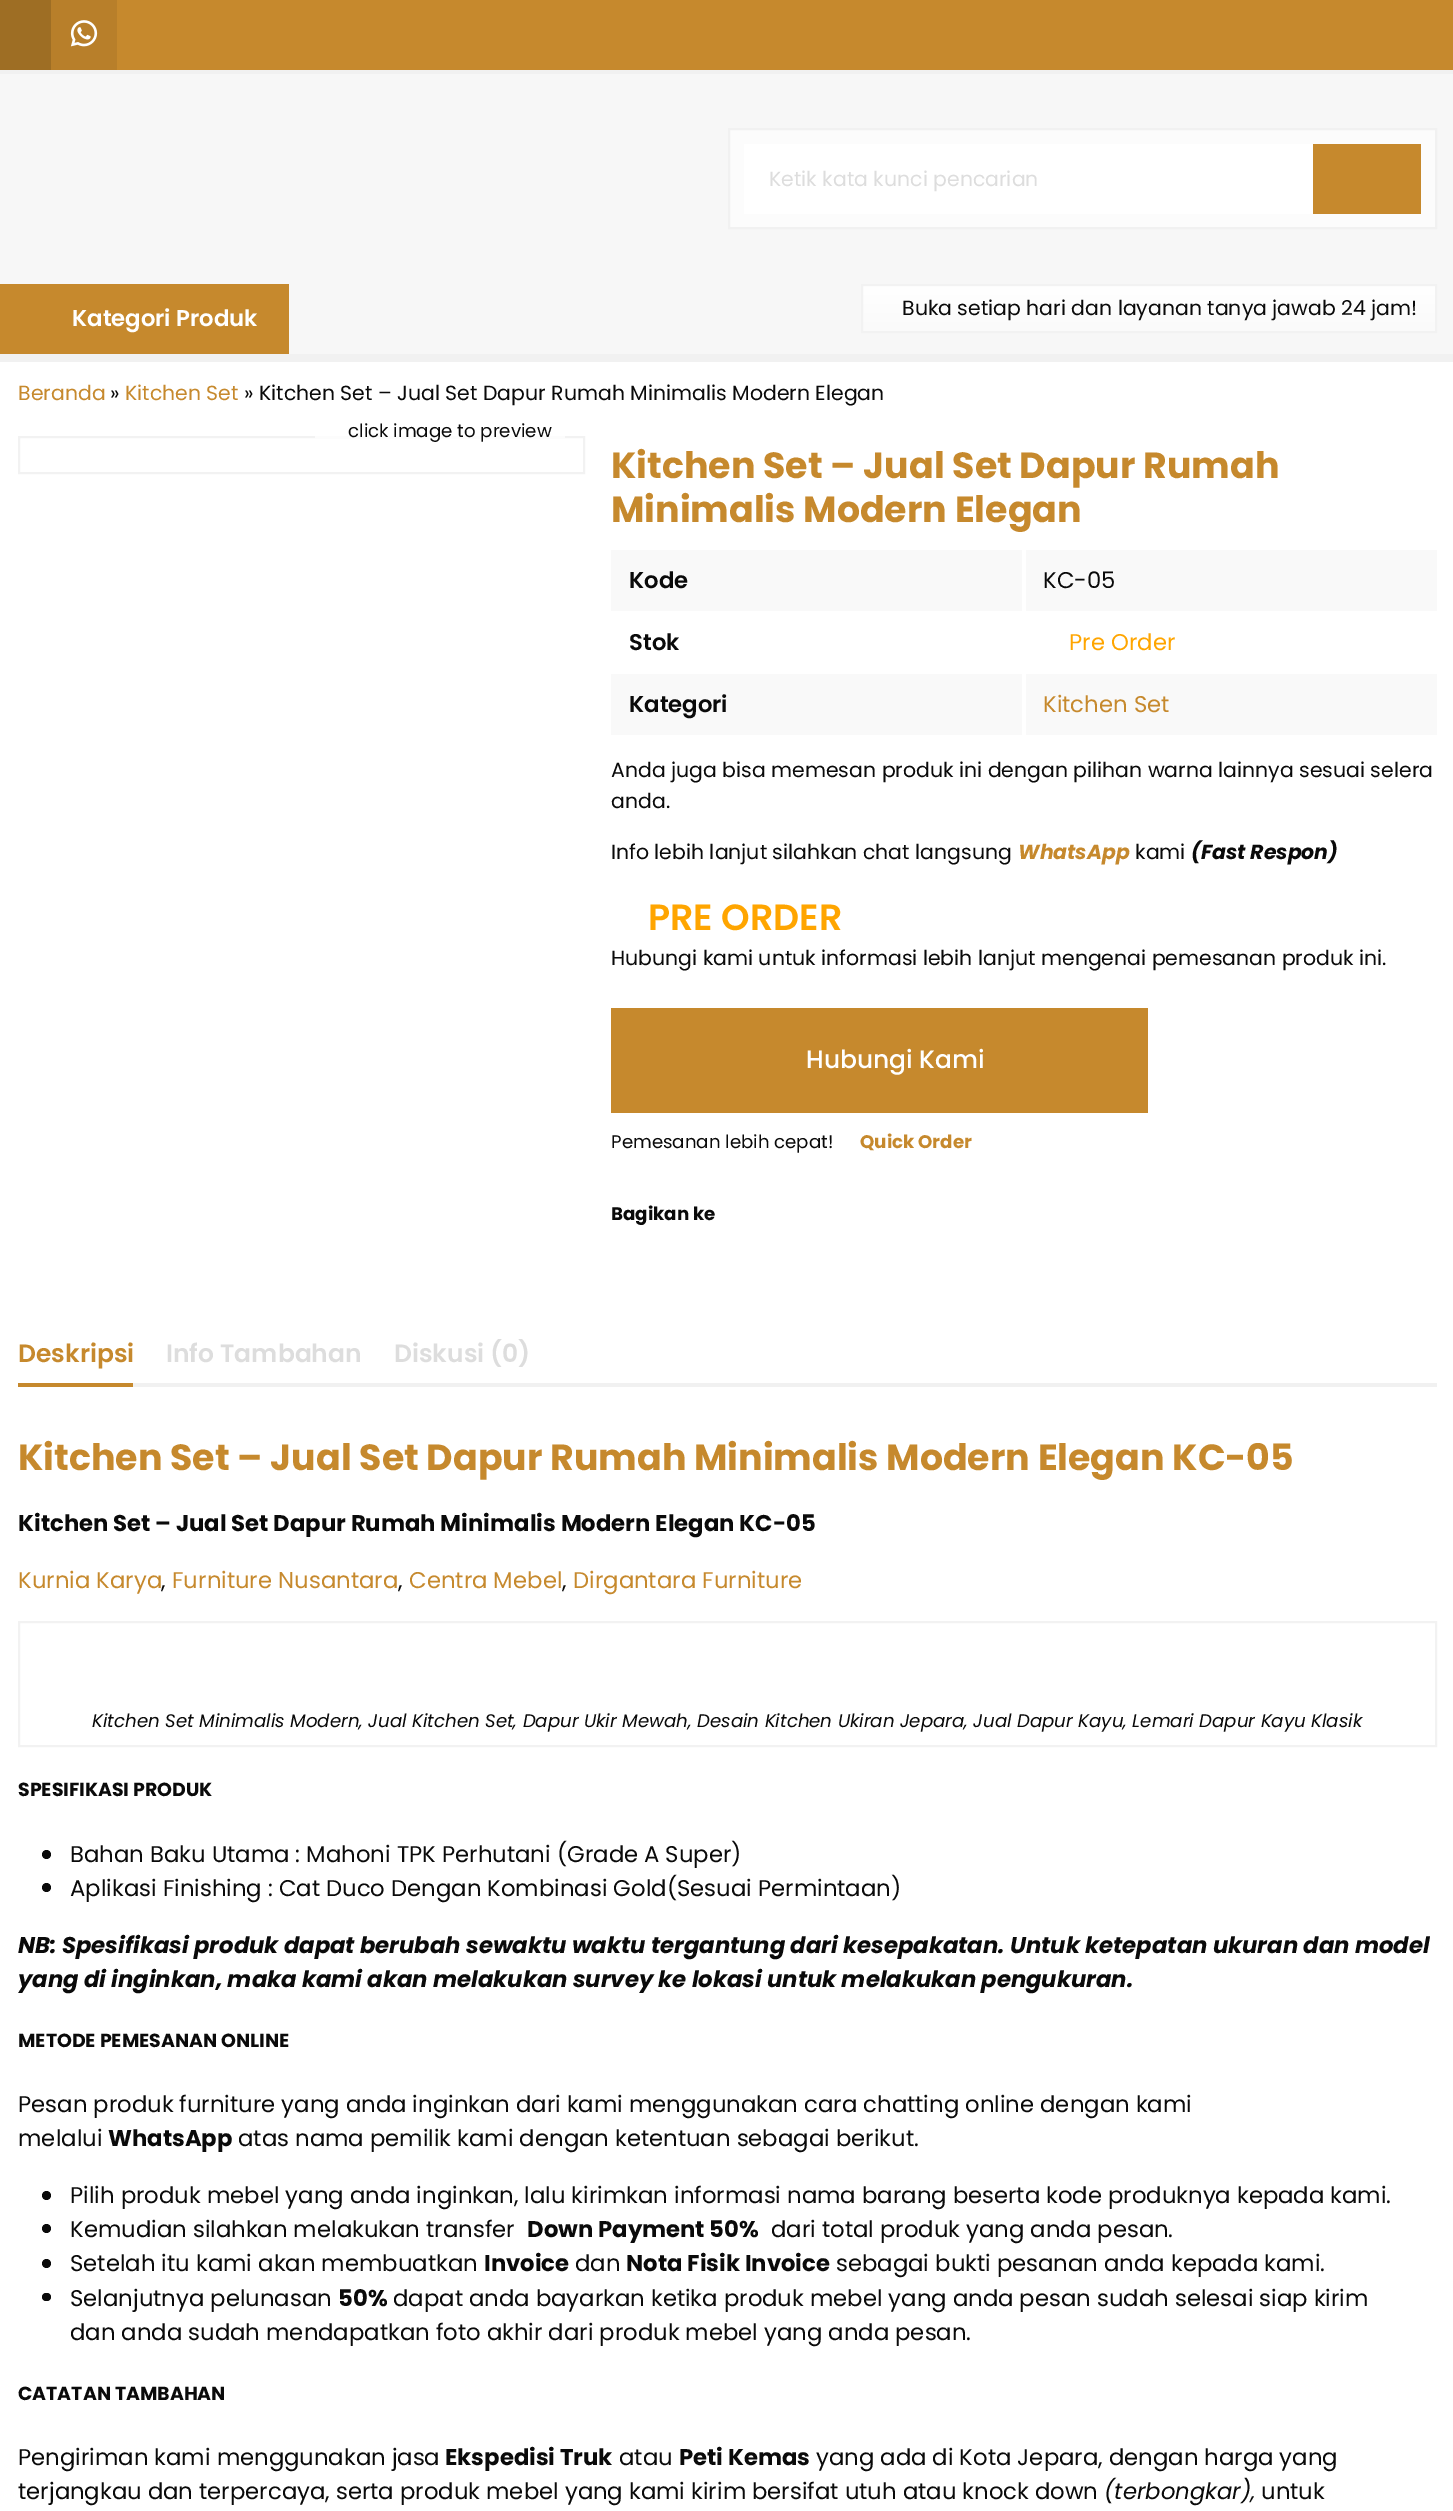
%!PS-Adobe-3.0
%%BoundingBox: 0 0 1453 2511
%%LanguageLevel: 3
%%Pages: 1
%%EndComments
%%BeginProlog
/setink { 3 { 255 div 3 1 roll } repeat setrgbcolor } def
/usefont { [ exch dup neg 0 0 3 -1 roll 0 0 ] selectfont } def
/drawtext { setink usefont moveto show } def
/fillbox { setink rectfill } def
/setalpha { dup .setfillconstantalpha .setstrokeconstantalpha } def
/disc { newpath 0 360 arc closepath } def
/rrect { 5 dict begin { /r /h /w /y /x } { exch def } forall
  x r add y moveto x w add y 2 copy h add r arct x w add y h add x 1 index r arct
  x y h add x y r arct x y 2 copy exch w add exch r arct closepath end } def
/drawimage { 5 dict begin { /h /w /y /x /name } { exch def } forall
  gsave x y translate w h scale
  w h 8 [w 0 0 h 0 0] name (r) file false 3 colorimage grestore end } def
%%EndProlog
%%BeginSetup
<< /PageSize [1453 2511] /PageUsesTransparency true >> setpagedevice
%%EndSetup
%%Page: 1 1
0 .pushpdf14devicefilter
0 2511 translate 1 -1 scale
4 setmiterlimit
0 0 1453 2511 241 241 241 fillbox
117 0 1336 70 198 137 45 fillbox
0 0 51 70 158 110 36 fillbox
51 0 66 70 184 127 42 fillbox
(assets/img1.rgb) 70 20 28 27 drawimage
0 74 1453 280 247 247 247 fillbox
252 252 252 setink
729 129 moveto 1436 129 lineto 1436 228 lineto 729 228 lineto closepath gsave fill grestore
241 241 241 setink
2 setlinewidth
stroke
744 144 569 70 255 255 255 fillbox
(Ketik kata kunci pencarian) 769 186 /Poppins-Regular 20.45 221 221 221 drawtext
1313 144 108 70 198 137 45 fillbox
0 284 289 70 198 137 45 fillbox
(Kategori Produk) 72 326 /Poppins-SemiBold 22.75 255 255 255 drawtext
gsave 863 286 moveto 1435 286 lineto 1435 331 lineto 863 331 lineto closepath clip newpath
<< /ShadingType 2 /ColorSpace /DeviceRGB /Coords [1149 331 1149 285] /Extend [true true] /Function << /FunctionType 2 /Domain [0 1] /C0 [0.98 0.98 0.98] /C1 [1 1 1] /N 1 >> >> shfill grestore
242 242 242 setink
862 285 574 47 rectstroke
(Buka setiap hari dan layanan tanya jawab 24 jam!) 902 315 /Poppins-Regular 20.45 10 10 10 drawtext
0 362 1453 2149 255 255 255 fillbox
(Beranda) 18 400 /Poppins-Regular 20.45 198 137 45 drawtext
(») 110 400 /Poppins-Regular 20.45 10 10 10 drawtext
(Kitchen Set) 125 400 /Poppins-Regular 20.45 198 137 45 drawtext
(» Kitchen Set – Jual Set Dapur Rumah Minimalis Modern Elegan) 244 400 /Poppins-Regular 20.45 10 10 10 drawtext
242 242 242 setink
19 437 565 36 rectstroke
0.8 setalpha
315 436 250 2 255 255 255 fillbox
1 setalpha
(click image to preview) 348 437 /Poppins-Regular 18.2 10 10 10 drawtext
(Kitchen Set – Jual Set Dapur Rumah) 611 478 /Poppins-Bold 36.4 198 137 45 drawtext
(Minimalis Modern Elegan) 611 522 /Poppins-Bold 36.4 198 137 45 drawtext
611 550 826 61 249 249 249 fillbox
(Kode) 629 588 /Poppins-SemiBold 22.75 10 10 10 drawtext
(KC-05) 1043 588 /Poppins-Regular 22.75 10 10 10 drawtext
1022 548 4 65 255 255 255 fillbox
(Stok) 629 650 /Poppins-SemiBold 22.75 10 10 10 drawtext
(Pre Order) 1069 650 /Poppins-Regular 22.75 255 165 0 drawtext
611 674 826 61 249 249 249 fillbox
1022 672 4 65 255 255 255 fillbox
(Kategori) 629 712 /Poppins-SemiBold 22.75 10 10 10 drawtext
(Kitchen Set) 1043 712 /Poppins-Regular 22.75 198 137 45 drawtext
(Anda juga bisa memesan produk ini dengan pilihan warna lainnya sesuai selera) 611 777 /Poppins-Regular 20.45 10 10 10 drawtext
(anda.) 611 808 /Poppins-Regular 20.45 10 10 10 drawtext
(Info lebih lanjut silahkan chat langsung) 611 859 /Poppins-Regular 20.45 10 10 10 drawtext
(WhatsApp) 1018 859 /Poppins-BoldItalic 20.45 198 137 45 drawtext
(kami) 1135 859 /Poppins-Regular 20.45 10 10 10 drawtext
(\(Fast Respon\)) 1191 859 /Poppins-BoldItalic 20.45 10 10 10 drawtext
(PRE ORDER) 648 930 /Poppins-SemiBold 36.4 255 165 0 drawtext
(Hubungi kami untuk informasi lebih lanjut mengenai pemesanan produk ini.) 611 965 /Poppins-Regular 20.45 10 10 10 drawtext
611 1008 537 105 198 137 45 fillbox
(Hubungi Kami) 806 1068 /Poppins-Medium 25 255 255 255 drawtext
(Pemesanan lebih cepat!) 611 1148 /Poppins-Regular 18.2 10 10 10 drawtext
(Quick Order) 860 1148 /Poppins-Bold 18.2 198 137 45 drawtext
(Bagikan ke) 611 1220 /Poppins-Bold 18.2 10 10 10 drawtext
133 1383 1304 4 241 241 241 fillbox
18 1383 115 4 198 137 45 fillbox
(Deskripsi) 18 1362 /Poppins-SemiBold 25 198 137 45 drawtext
(Info Tambahan) 166 1362 /Poppins-SemiBold 25 221 221 221 drawtext
(Diskusi \(0\)) 394 1362 /Poppins-SemiBold 25 221 221 221 drawtext
(Kitchen Set – Jual Set Dapur Rumah Minimalis Modern Elegan KC-05) 18 1470 /Poppins-Bold 36.4 198 137 45 drawtext
(Kitchen Set – Jual Set Dapur Rumah Minimalis Modern Elegan KC-05) 18 1531 /Poppins-Bold 22.75 10 10 10 drawtext
(Kurnia Karya) 18 1588 /Poppins-Regular 22.75 198 137 45 drawtext
(,) 161 1588 /Poppins-Regular 22.75 10 10 10 drawtext
(Furniture Nusantara) 172 1588 /Poppins-Regular 22.75 198 137 45 drawtext
(,) 398 1588 /Poppins-Regular 22.75 10 10 10 drawtext
(Centra Mebel) 409 1588 /Poppins-Regular 22.75 198 137 45 drawtext
(,) 562 1588 /Poppins-Regular 22.75 10 10 10 drawtext
(Dirgantara Furniture) 573 1588 /Poppins-Regular 22.75 198 137 45 drawtext
242 242 242 setink
19 1622 1417 124 rectstroke
(Kitchen Set Minimalis Modern, Jual Kitchen Set, Dapur Ukir Mewah, Desain Kitchen Ukiran Jepara, Jual Dapur Kayu, Lemari Dapur Kayu Klasik) 92 1727 /Poppins-Italic 18.2 10 10 10 drawtext
(SPESIFIKASI PRODUK) 18 1796 /Poppins-Bold 18.9 10 10 10 drawtext
46.5 1854.5 4.5 disc fill
(Bahan Baku Utama : Mahoni TPK Perhutani \(Grade A Super\)) 70 1862 /Poppins-Regular 22.75 10 10 10 drawtext
46.5 1887.5 4.5 disc fill
(Aplikasi Finishing : Cat Duco Dengan Kombinasi Gold\(Sesuai Permintaan\)) 70 1896 /Poppins-Regular 22.75 10 10 10 drawtext
(NB: Spesifikasi produk dapat berubah sewaktu waktu tergantung dari kesepakatan. Untuk ketepatan ukuran dan model) 18 1953 /Poppins-BoldItalic 22.75 10 10 10 drawtext
(yang di inginkan, maka kami akan melakukan survey ke lokasi untuk melakukan pengukuran.) 18 1987 /Poppins-BoldItalic 22.75 10 10 10 drawtext
(METODE PEMESANAN ONLINE) 18 2047 /Poppins-Bold 18.9 10 10 10 drawtext
(Pesan produk furniture yang anda inginkan dari kami menggunakan cara chatting online dengan kami) 18 2112 /Poppins-Regular 22.75 10 10 10 drawtext
(melalui) 18 2146 /Poppins-Regular 22.75 10 10 10 drawtext
(WhatsApp) 108 2146 /Poppins-Bold 22.75 10 10 10 drawtext
(atas nama pemilik kami dengan ketentuan sebagai berikut.) 238 2146 /Poppins-Regular 22.75 10 10 10 drawtext
46.5 2195.5 4.5 disc fill
(Pilih produk mebel yang anda inginkan, lalu kirimkan informasi nama barang beserta kode produknya kepada kami.) 70 2203 /Poppins-Regular 22.75 10 10 10 drawtext
46.5 2228.5 4.5 disc fill
(Kemudian silahkan melakukan transfer) 70 2237 /Poppins-Regular 22.75 10 10 10 drawtext
(Down Payment 50%) 527 2237 /Poppins-Bold 22.75 10 10 10 drawtext
(dari total produk yang anda pesan.) 771 2237 /Poppins-Regular 22.75 10 10 10 drawtext
46.5 2263.5 4.5 disc fill
(Setelah itu kami akan membuatkan) 70 2271 /Poppins-Regular 22.75 10 10 10 drawtext
(Invoice) 484 2271 /Poppins-Bold 22.75 10 10 10 drawtext
(dan) 575 2271 /Poppins-Regular 22.75 10 10 10 drawtext
(Nota Fisik Invoice) 626 2271 /Poppins-Bold 22.75 10 10 10 drawtext
(sebagai bukti pesanan anda kepada kami.) 836 2271 /Poppins-Regular 22.75 10 10 10 drawtext
42 2293 9 8 4 rrect fill
(Selanjutnya pelunasan) 70 2306 /Poppins-Regular 22.75 10 10 10 drawtext
(50%) 338 2306 /Poppins-Bold 22.75 10 10 10 drawtext
(dapat anda bayarkan ketika produk mebel yang anda pesan sudah selesai siap kirim) 393 2306 /Poppins-Regular 22.75 10 10 10 drawtext
(dan anda sudah mendapatkan foto akhir dari produk mebel yang anda pesan.) 70 2340 /Poppins-Regular 22.75 10 10 10 drawtext
(CATATAN TAMBAHAN) 18 2400 /Poppins-Bold 18.9 10 10 10 drawtext
(Pengiriman kami menggunakan jasa) 18 2465 /Poppins-Regular 22.75 10 10 10 drawtext
(Ekspedisi Truk) 445 2465 /Poppins-Bold 22.75 10 10 10 drawtext
(atau) 619 2465 /Poppins-Regular 22.75 10 10 10 drawtext
(Peti Kemas) 679 2465 /Poppins-Bold 22.75 10 10 10 drawtext
(yang ada di Kota Jepara, dengan harga yang) 816 2465 /Poppins-Regular 22.75 10 10 10 drawtext
(terjangkau dan terpercaya, serta produk mebel yang kami kirim bersifat utuh atau knock down) 18 2499 /Poppins-Regular 22.75 10 10 10 drawtext
(\(terbongkar\),) 1104 2499 /Poppins-Italic 22.75 10 10 10 drawtext
(untuk) 1261 2499 /Poppins-Regular 22.75 10 10 10 drawtext
.poppdf14devicefilter showpage
%%EOF
